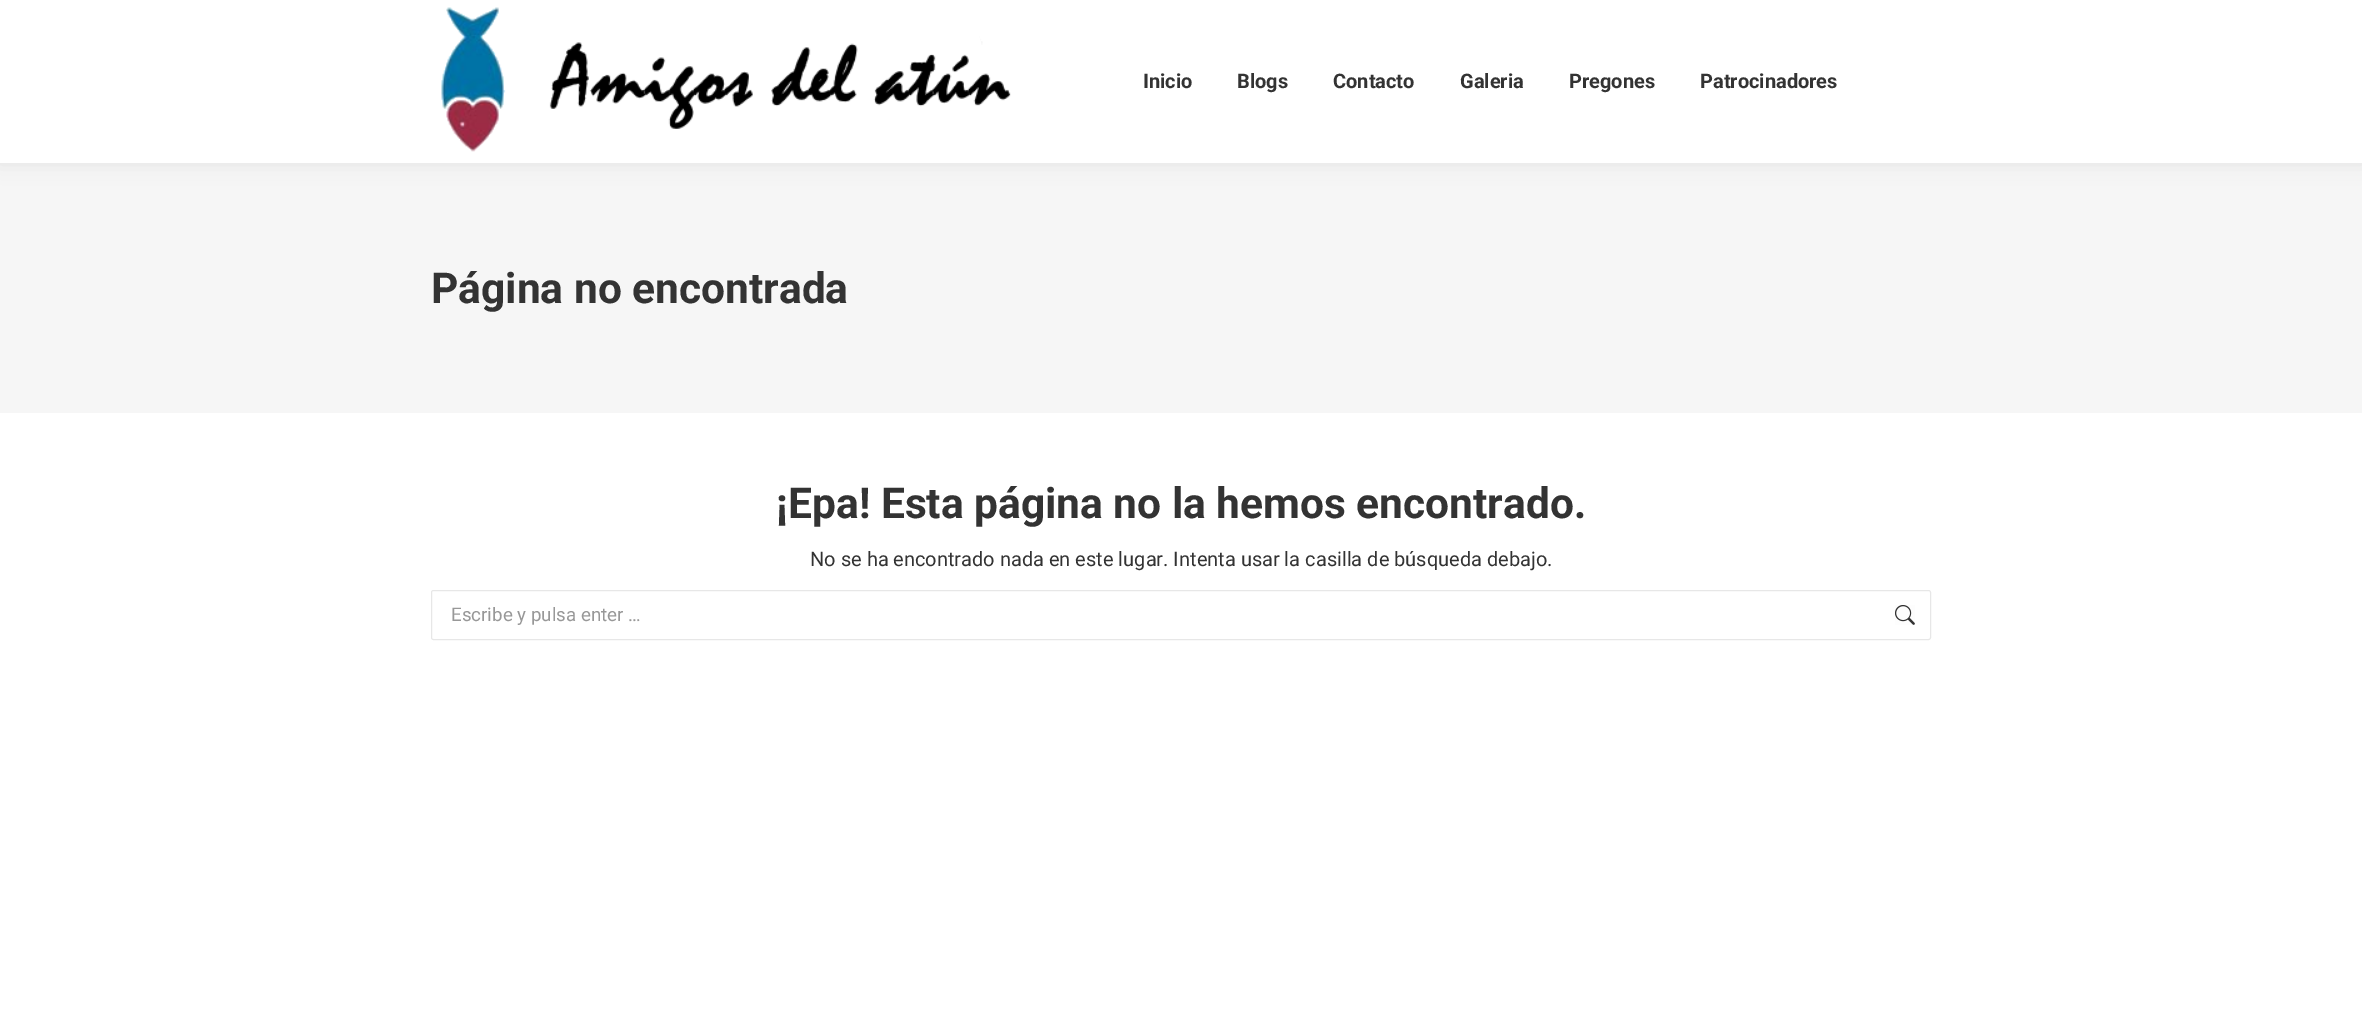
%!PS-Adobe-3.0
%%BoundingBox: 0 0 2362 1020
%%LanguageLevel: 3
%%Pages: 1
%%EndComments
%%BeginProlog
/setink { 3 { 255 div 3 1 roll } repeat setrgbcolor } def
/usefont { [ exch dup neg 0 0 3 -1 roll 0 0 ] selectfont } def
/drawtext { setink usefont moveto show } def
/fillbox { setink rectfill } def
/setalpha { dup .setfillconstantalpha .setstrokeconstantalpha } def
/rrect { 5 dict begin { /r /h /w /y /x } { exch def } forall
  x r add y moveto x w add y 2 copy h add r arct x w add y h add x 1 index r arct
  x y h add x y r arct x y 2 copy exch w add exch r arct closepath end } def
/softshadow { 12 dict begin { /a /b /q /h /w /y /x } { exch def } forall gsave /was 0 def
  9 -2 -9 { dup b mul 4 div /e exch def 1 sub .425 mul 2.718 exch exp 1 add a .99 .min exch div /now exch def
    1 1 now sub 1 was sub div sub setalpha /was now def
    w h .min e 2 mul add 0 gt { x e sub y e sub w e 2 mul add h e 2 mul add
      q e add b .6 mul add w h .min 2 div e add .min 0 .max rrect fill } if } for grestore end } def
/drawimage { 5 dict begin { /h /w /y /x /name } { exch def } forall
  gsave x y translate w h scale
  w h 8 [w 0 0 h 0 0] name (r) file false 3 colorimage grestore end } def
%%EndProlog
%%BeginSetup
<< /PageSize [2362 1020] /PageUsesTransparency true >> setpagedevice
%%EndSetup
%%Page: 1 1
0 .pushpdf14devicefilter
0 1020 translate 1 -1 scale
4 setmiterlimit
0 0 2362 1020 255 255 255 fillbox
0 163 2362 250 246 246 246 fillbox
0 0 0 setink
-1 -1 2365 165 0 9.5 0.07 softshadow
0 0 2362 163 255 255 255 fillbox
(assets/img1.rgb) 441 7 570 145 drawimage
(Inicio) 1143 88 /Roboto-Bold 20 51 51 51 drawtext
(Blogs) 1237 88 /Roboto-Bold 20 51 51 51 drawtext
(Contacto) 1333 88 /Roboto-Bold 20 51 51 51 drawtext
(Galeria) 1460 88 /Roboto-Bold 20 51 51 51 drawtext
(Pregones) 1569 88 /Roboto-Bold 20 51 51 51 drawtext
(Patrocinadores) 1700 88 /Roboto-Bold 20 51 51 51 drawtext
(Página no encontrada) 431 303 /Roboto-Bold 42.5 51 51 51 drawtext
(¡Epa! Esta página no la hemos encontrado.) 776 518 /Roboto-Bold 42.5 51 51 51 drawtext
(No se ha encontrado nada en este lugar. Intenta usar la casilla de búsqueda debajo.) 810 566 /Roboto-Regular 20 51 51 51 drawtext
231 231 231 setink
431.5 590.5 1499 49 2 rrect stroke
(Escribe y pulsa enter …) 451 621 /Roboto-Regular 18.75 152 152 152 drawtext
(assets/img2.rgb) 1895 605 20 20 drawimage
.poppdf14devicefilter showpage
%%EOF
